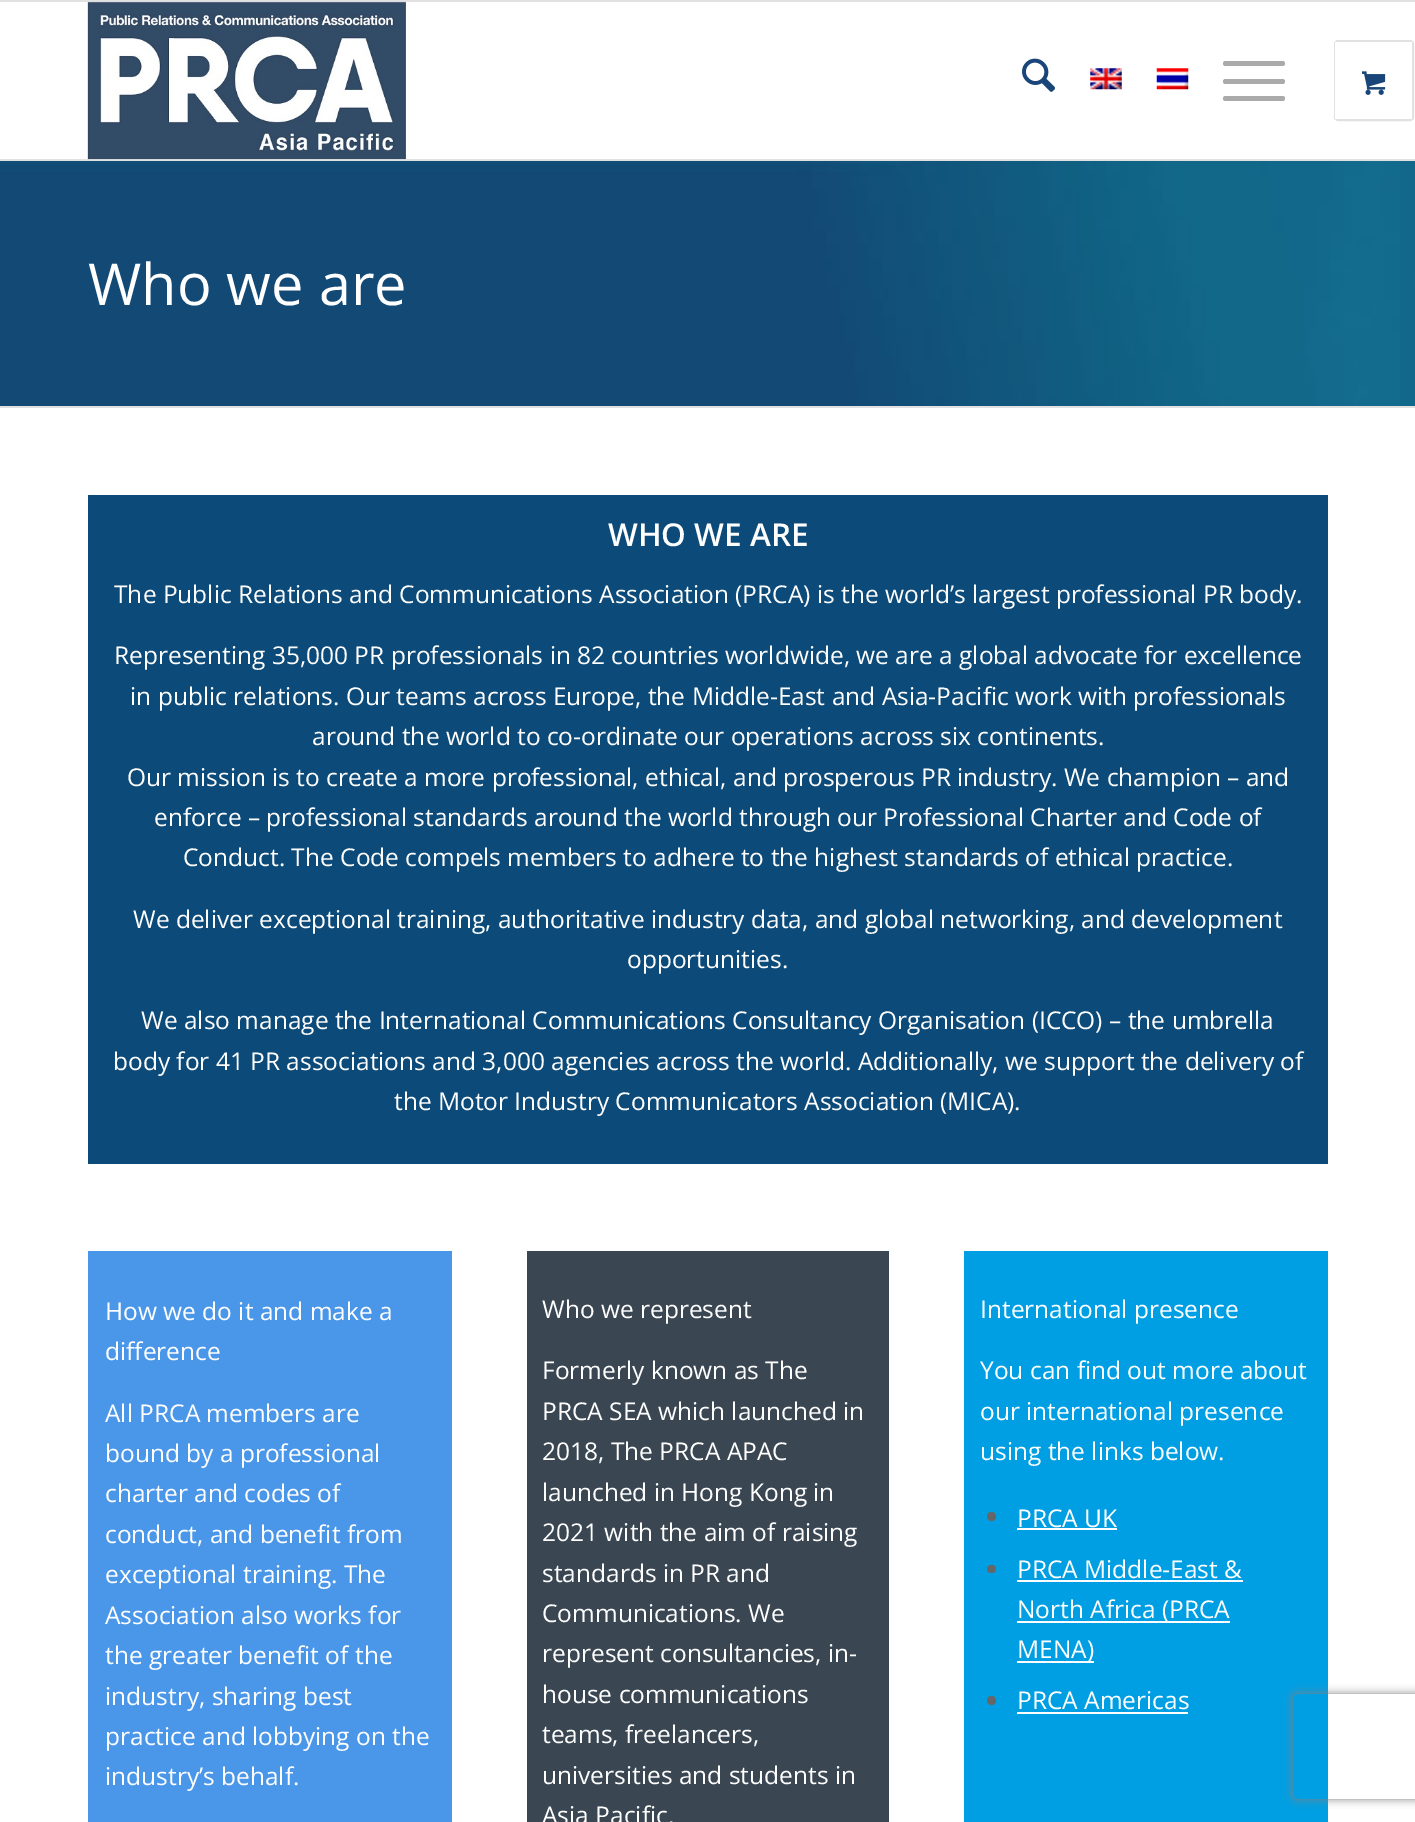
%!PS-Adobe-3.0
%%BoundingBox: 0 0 1415 1822
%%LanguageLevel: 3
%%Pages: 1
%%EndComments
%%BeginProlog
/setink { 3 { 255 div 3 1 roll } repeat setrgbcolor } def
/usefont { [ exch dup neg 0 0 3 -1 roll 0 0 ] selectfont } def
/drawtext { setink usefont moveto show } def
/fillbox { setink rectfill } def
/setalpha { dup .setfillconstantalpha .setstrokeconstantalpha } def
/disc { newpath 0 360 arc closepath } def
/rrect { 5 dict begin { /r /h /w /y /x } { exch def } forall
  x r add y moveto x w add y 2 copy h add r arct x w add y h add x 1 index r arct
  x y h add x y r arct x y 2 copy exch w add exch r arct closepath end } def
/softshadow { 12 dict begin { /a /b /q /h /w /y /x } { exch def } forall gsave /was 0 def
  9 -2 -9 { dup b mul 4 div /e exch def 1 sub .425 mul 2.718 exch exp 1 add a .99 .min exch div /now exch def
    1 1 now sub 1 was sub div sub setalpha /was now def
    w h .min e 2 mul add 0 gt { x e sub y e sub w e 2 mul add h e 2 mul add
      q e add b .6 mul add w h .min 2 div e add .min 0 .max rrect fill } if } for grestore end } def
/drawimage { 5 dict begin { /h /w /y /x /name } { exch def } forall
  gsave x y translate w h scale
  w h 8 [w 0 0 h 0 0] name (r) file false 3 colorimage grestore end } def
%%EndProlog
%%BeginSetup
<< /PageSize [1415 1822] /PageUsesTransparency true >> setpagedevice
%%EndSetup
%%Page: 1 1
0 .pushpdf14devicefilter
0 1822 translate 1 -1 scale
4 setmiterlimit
0 0 1415 1822 255 255 255 fillbox
0 0 1415 2 225 225 225 fillbox
0 159 1415 2 225 225 225 fillbox
(assets/img1.rgb) 87 1 319 159 drawimage
(assets/img2.rgb) 1022 58 33 34 drawimage
(assets/img3.rgb) 1090 68 32 22 drawimage
(assets/img4.rgb) 1156 68 33 22 drawimage
170 170 170 setink
1223 79 62 5 2.5 rrect fill
1223 61 62 5 2.5 rrect fill
1223 96 62 5 2.5 rrect fill
225 225 225 setink
2 setlinewidth
1335 41 78 79 3 rrect stroke
1335 42 77 77 255 255 255 fillbox
(assets/img5.rgb) 1362 71 24 24 drawimage
(assets/img6.rgb) 0 161 1415 245 drawimage
(Who we are) 88 305 /OpenSans-Regular 57.75 255 255 255 drawtext
0 406 1415 2 225 225 225 fillbox
88 495 1240 669 12 75 121 fillbox
(WHO WE ARE) 608 546 /OpenSans-SemiBold 31.5 255 255 255 drawtext
(The Public Relations and Communications Association \(PRCA\) is the world’s largest professional PR body.) 114 603 /OpenSans-Regular 24.5 255 255 255 drawtext
(Representing 35,000 PR professionals in 82 countries worldwide, we are a global advocate for excellence) 114 664 /OpenSans-Regular 24.5 255 255 255 drawtext
(in public relations. Our teams across Europe, the Middle-East and Asia-Pacific work with professionals) 130 705 /OpenSans-Regular 24.5 255 255 255 drawtext
(around the world to co-ordinate our operations across six continents.) 312 745 /OpenSans-Regular 24.5 255 255 255 drawtext
(Our mission is to create a more professional, ethical, and prosperous PR industry. We champion – and) 127 786 /OpenSans-Regular 24.5 255 255 255 drawtext
(enforce – professional standards around the world through our Professional Charter and Code of) 154 826 /OpenSans-Regular 24.5 255 255 255 drawtext
(Conduct. The Code compels members to adhere to the highest standards of ethical practice.) 183 866 /OpenSans-Regular 24.5 255 255 255 drawtext
(We deliver exceptional training, authoritative industry data, and global networking, and development) 133 928 /OpenSans-Regular 24.5 255 255 255 drawtext
(opportunities.) 627 968 /OpenSans-Regular 24.5 255 255 255 drawtext
(We also manage the International Communications Consultancy Organisation \(ICCO\) – the umbrella) 141 1029 /OpenSans-Regular 24.5 255 255 255 drawtext
(body for 41 PR associations and 3,000 agencies across the world. Additionally, we support the delivery of) 113 1070 /OpenSans-Regular 24.5 255 255 255 drawtext
(the Motor Industry Communicators Association \(MICA\).) 394 1110 /OpenSans-Regular 24.5 255 255 255 drawtext
88 1251 364 571 74 150 232 fillbox
(How we do it and make a) 105 1320 /OpenSans-Regular 24.5 255 255 255 drawtext
(difference) 105 1360 /OpenSans-Regular 24.5 255 255 255 drawtext
(All PRCA members are) 105 1422 /OpenSans-Regular 24.5 255 255 255 drawtext
(bound by a professional) 105 1462 /OpenSans-Regular 24.5 255 255 255 drawtext
(charter and codes of) 105 1502 /OpenSans-Regular 24.5 255 255 255 drawtext
(conduct, and benefit from) 105 1543 /OpenSans-Regular 24.5 255 255 255 drawtext
(exceptional training. The) 105 1583 /OpenSans-Regular 24.5 255 255 255 drawtext
(Association also works for) 105 1624 /OpenSans-Regular 24.5 255 255 255 drawtext
(the greater benefit of the) 105 1664 /OpenSans-Regular 24.5 255 255 255 drawtext
(industry, sharing best) 105 1705 /OpenSans-Regular 24.5 255 255 255 drawtext
(practice and lobbying on the) 105 1745 /OpenSans-Regular 24.5 255 255 255 drawtext
(industry’s behalf.) 105 1785 /OpenSans-Regular 24.5 255 255 255 drawtext
527 1251 362 571 58 71 82 fillbox
(Who we represent) 542 1318 /OpenSans-Regular 24.5 255 255 255 drawtext
(Formerly known as The) 542 1379 /OpenSans-Regular 24.5 255 255 255 drawtext
(PRCA SEA which launched in) 542 1420 /OpenSans-Regular 24.5 255 255 255 drawtext
(2018, The PRCA APAC) 542 1460 /OpenSans-Regular 24.5 255 255 255 drawtext
(launched in Hong Kong in) 542 1501 /OpenSans-Regular 24.5 255 255 255 drawtext
(2021 with the aim of raising) 542 1541 /OpenSans-Regular 24.5 255 255 255 drawtext
(standards in PR and) 542 1582 /OpenSans-Regular 24.5 255 255 255 drawtext
(Communications. We) 542 1622 /OpenSans-Regular 24.5 255 255 255 drawtext
(represent consultancies, in-) 542 1662 /OpenSans-Regular 24.5 255 255 255 drawtext
(house communications) 542 1703 /OpenSans-Regular 24.5 255 255 255 drawtext
(teams, freelancers,) 542 1743 /OpenSans-Regular 24.5 255 255 255 drawtext
(universities and students in) 542 1784 /OpenSans-Regular 24.5 255 255 255 drawtext
(Asia Pacific.) 542 1824 /OpenSans-Regular 24.5 255 255 255 drawtext
964 1251 364 571 0 159 227 fillbox
(International presence) 980 1318 /OpenSans-Regular 24.5 255 255 255 drawtext
(You can find out more about) 980 1379 /OpenSans-Regular 24.5 255 255 255 drawtext
(our international presence) 980 1420 /OpenSans-Regular 24.5 255 255 255 drawtext
(using the links below.) 980 1460 /OpenSans-Regular 24.5 255 255 255 drawtext
102 102 102 setink
991.5 1516.5 4.5 disc fill
(PRCA UK) 1017 1527 /OpenSans-Regular 24.5 255 255 255 drawtext
1017 1528 100 2 255 255 255 fillbox
102 102 102 setink
987 1565 9 8 4 rrect fill
(PRCA Middle-East &) 1017 1578 /OpenSans-Regular 24.5 255 255 255 drawtext
1017 1580 226 2 255 255 255 fillbox
1017 1621 213 2 255 255 255 fillbox
(North Africa \(PRCA) 1017 1618 /OpenSans-Regular 24.5 255 255 255 drawtext
1017 1661 77 2 255 255 255 fillbox
(MENA\)) 1017 1658 /OpenSans-Regular 24.5 255 255 255 drawtext
102 102 102 setink
991.5 1700.5 4.5 disc fill
(PRCA Americas) 1017 1709 /OpenSans-Regular 24.5 255 255 255 drawtext
1017 1712 171 2 255 255 255 fillbox
gsave
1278 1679 moveto 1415 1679 lineto 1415 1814 lineto 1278 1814 lineto closepath 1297 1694 moveto 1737 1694 lineto 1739 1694 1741 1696 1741 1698 curveto 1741 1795 lineto 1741 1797 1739 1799 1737 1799 curveto 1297 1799 lineto 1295 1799 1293 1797 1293 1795 curveto 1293 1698 lineto 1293 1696 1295 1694 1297 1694 curveto closepath eoclip newpath
128 128 128 setink
1293 1694 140 105 4 4.5 1 softshadow
grestore
.poppdf14devicefilter showpage
%%EOF
